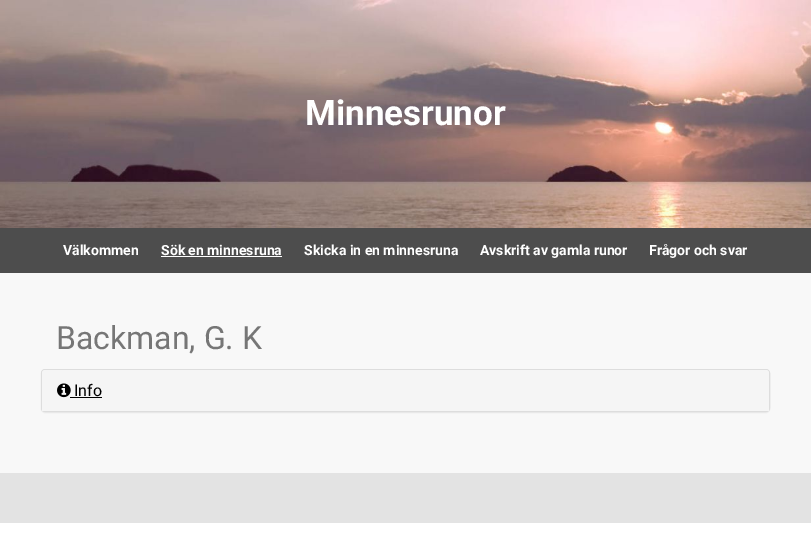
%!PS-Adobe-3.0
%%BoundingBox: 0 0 811 539
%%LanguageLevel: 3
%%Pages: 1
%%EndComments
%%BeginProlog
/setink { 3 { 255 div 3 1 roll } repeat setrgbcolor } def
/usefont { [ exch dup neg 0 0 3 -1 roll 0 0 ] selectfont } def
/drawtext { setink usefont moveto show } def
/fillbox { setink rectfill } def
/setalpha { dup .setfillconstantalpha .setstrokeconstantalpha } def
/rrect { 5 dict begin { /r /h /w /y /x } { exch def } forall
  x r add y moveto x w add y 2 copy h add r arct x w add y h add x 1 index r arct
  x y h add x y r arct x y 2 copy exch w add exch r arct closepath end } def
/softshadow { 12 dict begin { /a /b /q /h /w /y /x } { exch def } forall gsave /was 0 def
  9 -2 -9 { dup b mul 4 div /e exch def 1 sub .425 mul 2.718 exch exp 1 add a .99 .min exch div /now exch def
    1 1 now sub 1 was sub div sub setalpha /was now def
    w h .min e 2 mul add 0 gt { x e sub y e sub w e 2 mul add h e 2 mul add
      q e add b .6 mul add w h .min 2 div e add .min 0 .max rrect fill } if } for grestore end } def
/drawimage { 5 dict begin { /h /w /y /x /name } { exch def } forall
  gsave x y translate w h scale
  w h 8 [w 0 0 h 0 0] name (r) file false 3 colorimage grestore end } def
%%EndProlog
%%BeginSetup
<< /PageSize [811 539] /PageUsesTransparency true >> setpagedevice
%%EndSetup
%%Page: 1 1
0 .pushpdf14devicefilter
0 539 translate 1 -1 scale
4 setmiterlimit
0 0 811 539 255 255 255 fillbox
(assets/img1.rgb) 0 0 811 228 drawimage
(Minnesrunor) 305 125 /Roboto-Bold 35 255 255 255 drawtext
0 228 811 45 77 77 77 fillbox
(Välkommen) 63 255 /Roboto-Bold 14 255 255 255 drawtext
(Sök en minnesruna) 161 255 /Roboto-Bold 14 255 255 255 drawtext
161 256 121 1 255 255 255 fillbox
(Skicka in en minnesruna) 304 255 /Roboto-Bold 14 255 255 255 drawtext
(Avskrift av gamla runor) 480 255 /Roboto-Bold 14 255 255 255 drawtext
(Frågor och svar) 649 255 /Roboto-Bold 14 255 255 255 drawtext
0 273 811 200 248 248 248 fillbox
(Backman, G. K) 56 349 /Roboto-Regular 32 118 118 118 drawtext
0 0 0 setink
41 370 729 43 4 0.5 0.05 softshadow
221 221 221 setink
41.5 369.5 728 42 3.5 rrect stroke
245 245 245 setink
45 370 moveto 766 370 lineto 767.5 370 769 371.5 769 373 curveto 769 411 lineto 42 411 lineto 42 373 lineto 42 371.5 43.5 370 45 370 curveto closepath fill
(assets/img2.rgb) 57 383 14 15 drawimage
(Info) 74 396 /Roboto-Regular 16 0 0 0 drawtext
70 397 32 1 0 0 0 fillbox
0 473 811 50 227 227 227 fillbox
.poppdf14devicefilter showpage
%%EOF
